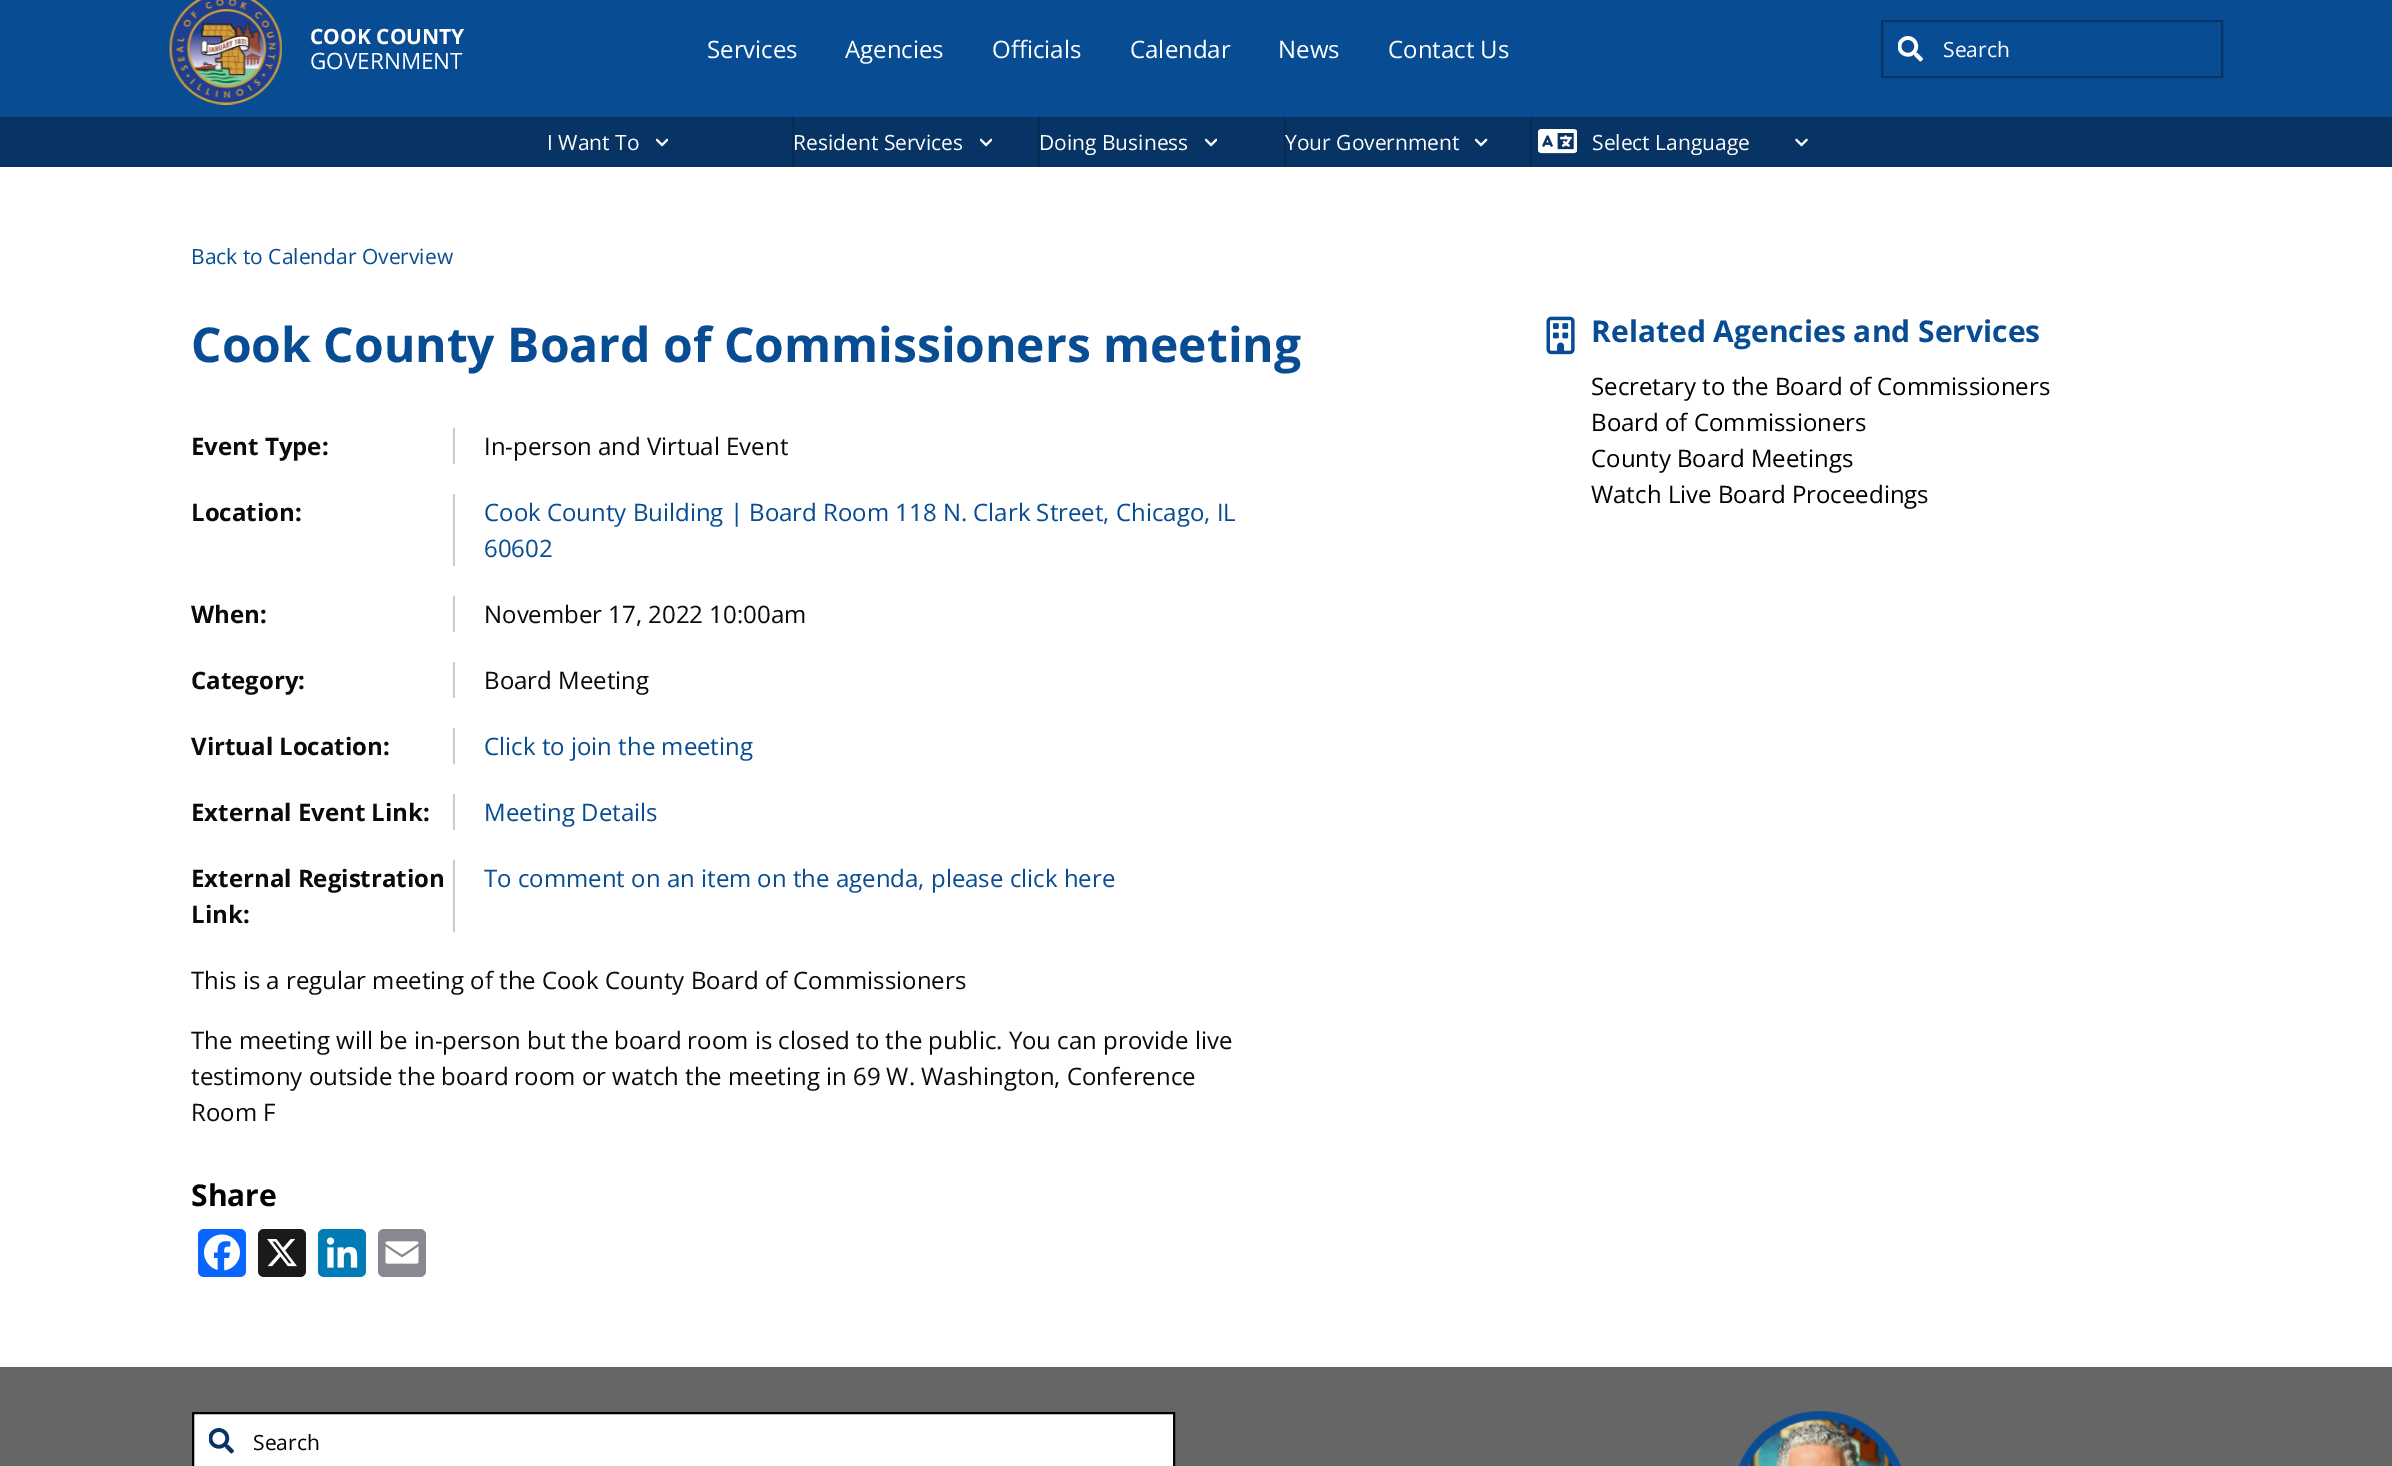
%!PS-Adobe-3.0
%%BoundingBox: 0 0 2392 1466
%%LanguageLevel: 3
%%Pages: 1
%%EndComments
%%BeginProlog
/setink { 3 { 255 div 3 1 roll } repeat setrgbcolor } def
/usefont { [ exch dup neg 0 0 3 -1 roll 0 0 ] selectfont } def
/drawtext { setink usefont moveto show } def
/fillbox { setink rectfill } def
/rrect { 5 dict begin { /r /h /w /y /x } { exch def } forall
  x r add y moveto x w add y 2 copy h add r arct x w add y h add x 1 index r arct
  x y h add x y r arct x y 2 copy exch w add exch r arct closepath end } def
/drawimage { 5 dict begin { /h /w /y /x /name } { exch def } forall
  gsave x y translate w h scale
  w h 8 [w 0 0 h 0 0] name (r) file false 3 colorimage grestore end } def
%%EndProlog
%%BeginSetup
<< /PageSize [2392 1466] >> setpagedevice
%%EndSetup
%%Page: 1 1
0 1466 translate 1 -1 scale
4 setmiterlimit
0 0 2392 1466 255 255 255 fillbox
0 0 2392 117 8 77 148 fillbox
(assets/img1.rgb) 169 0 113 105 drawimage
(COOK COUNTY) 310 44 /OpenSans-Bold 21 255 255 255 drawtext
(GOVERNMENT) 310 69 /OpenSans-Regular 22.5 255 255 255 drawtext
(Services) 707 58 /OpenSans-Regular 24 255 255 255 drawtext
(Agencies) 845 58 /OpenSans-Regular 24 255 255 255 drawtext
(Officials) 992 58 /OpenSans-Regular 24 255 255 255 drawtext
(Calendar) 1130 58 /OpenSans-Regular 24 255 255 255 drawtext
(News) 1278 58 /OpenSans-Regular 24 255 255 255 drawtext
(Contact Us) 1388 58 /OpenSans-Regular 24 255 255 255 drawtext
(assets/img2.rgb) 1898 36 25 26 drawimage
7 52 100 setink
2 setlinewidth
1882 21 340 56 rectstroke
(Search) 1943 57 /OpenSans-Regular 21 255 255 255 drawtext
0 117 2392 50 7 52 100 fillbox
792 117 2 50 6 42 80 fillbox
(I Want To) 547 150 /OpenSans-Regular 21 255 255 255 drawtext
(assets/img3.rgb) 656 138 12 9 drawimage
1038 117 2 50 6 42 80 fillbox
(Resident Services) 793 150 /OpenSans-Regular 21 255 255 255 drawtext
(assets/img3.rgb) 980 138 12 9 drawimage
1284 117 2 50 6 42 80 fillbox
(Doing Business) 1039 150 /OpenSans-Regular 21 255 255 255 drawtext
(assets/img3.rgb) 1205 138 12 9 drawimage
1530 117 2 50 6 42 80 fillbox
(Your Government) 1285 150 /OpenSans-Regular 21 255 255 255 drawtext
(assets/img4.rgb) 1475 138 13 9 drawimage
(assets/img5.rgb) 1538 129 39 25 drawimage
(assets/img6.rgb) 1795 138 13 9 drawimage
(Select Language) 1592 150 /OpenSans-Regular 21 255 255 255 drawtext
(Back to Calendar Overview) 191 264 /OpenSans-Regular 21 8 77 148 drawtext
(Cook County Board of Commissioners meeting) 191 362 /OpenSans-Bold 48 8 77 148 drawtext
453 428 2 36 202 202 202 fillbox
(Event Type:) 191 455 /OpenSans-Bold 24 10 10 10 drawtext
(In-person and Virtual Event) 484 455 /OpenSans-Regular 24 10 10 10 drawtext
453 494 2 72 202 202 202 fillbox
(Location:) 191 521 /OpenSans-Bold 24 10 10 10 drawtext
(Cook County Building | Board Room 118 N. Clark Street, Chicago, IL) 484 521 /OpenSans-Regular 24 8 77 148 drawtext
(60602) 484 557 /OpenSans-Regular 24 8 77 148 drawtext
453 596 2 36 202 202 202 fillbox
(When:) 191 623 /OpenSans-Bold 24 10 10 10 drawtext
(November 17, 2022 10:00am) 484 623 /OpenSans-Regular 24 10 10 10 drawtext
453 662 2 36 202 202 202 fillbox
(Category:) 191 689 /OpenSans-Bold 24 10 10 10 drawtext
(Board Meeting) 484 689 /OpenSans-Regular 24 10 10 10 drawtext
453 728 2 36 202 202 202 fillbox
(Virtual Location:) 191 755 /OpenSans-Bold 24 10 10 10 drawtext
(Click to join the meeting) 484 755 /OpenSans-Regular 24 8 77 148 drawtext
453 794 2 36 202 202 202 fillbox
(External Event Link:) 191 821 /OpenSans-Bold 24 10 10 10 drawtext
(Meeting Details) 484 821 /OpenSans-Regular 24 8 77 148 drawtext
453 860 2 72 202 202 202 fillbox
(External Registration) 191 887 /OpenSans-Bold 24 10 10 10 drawtext
(Link:) 191 923 /OpenSans-Bold 24 10 10 10 drawtext
(To comment on an item on the agenda, please click here) 484 887 /OpenSans-Regular 24 8 77 148 drawtext
(This is a regular meeting of the Cook County Board of Commissioners) 191 989 /OpenSans-Regular 24 10 10 10 drawtext
(The meeting will be in-person but the board room is closed to the public. You can provide live) 191 1049 /OpenSans-Regular 24 10 10 10 drawtext
(testimony outside the board room or watch the meeting in 69 W. Washington, Conference) 191 1085 /OpenSans-Regular 24 10 10 10 drawtext
(Room F) 191 1121 /OpenSans-Regular 24 10 10 10 drawtext
(Share) 191 1206 /OpenSans-Bold 30 0 0 0 drawtext
8 102 255 setink
198 1229 48 48 6 rrect fill
(assets/img7.rgb) 204 1234 36 37 drawimage
26 26 26 setink
258 1229 48 48 6 rrect fill
(assets/img8.rgb) 267 1239 30 28 drawimage
0 123 181 setink
318 1229 48 48 6 rrect fill
(assets/img9.rgb) 326 1237 32 31 drawimage
136 137 144 setink
378 1229 48 48 6 rrect fill
(assets/img10.rgb) 385 1241 34 23 drawimage
(assets/img11.rgb) 1546 316 29 39 drawimage
(Related Agencies and Services) 1591 342 /OpenSans-Bold 30 8 77 148 drawtext
(Secretary to the Board of Commissioners) 1591 395 /OpenSans-Regular 24 0 0 0 drawtext
(Board of Commissioners) 1591 431 /OpenSans-Regular 24 0 0 0 drawtext
(County Board Meetings) 1591 467 /OpenSans-Regular 24 0 0 0 drawtext
(Watch Live Board Proceedings) 1591 503 /OpenSans-Regular 24 0 0 0 drawtext
0 1367 2392 99 102 102 102 fillbox
194 1414 979 52 255 255 255 fillbox
(assets/img12.rgb) 209 1428 25 26 drawimage
0 0 0 setink
193 1413 981 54 rectstroke
(Search) 253 1450 /OpenSans-Regular 21 0 0 0 drawtext
(assets/img13.rgb) 1738 1411 163 55 drawimage
showpage
%%EOF
